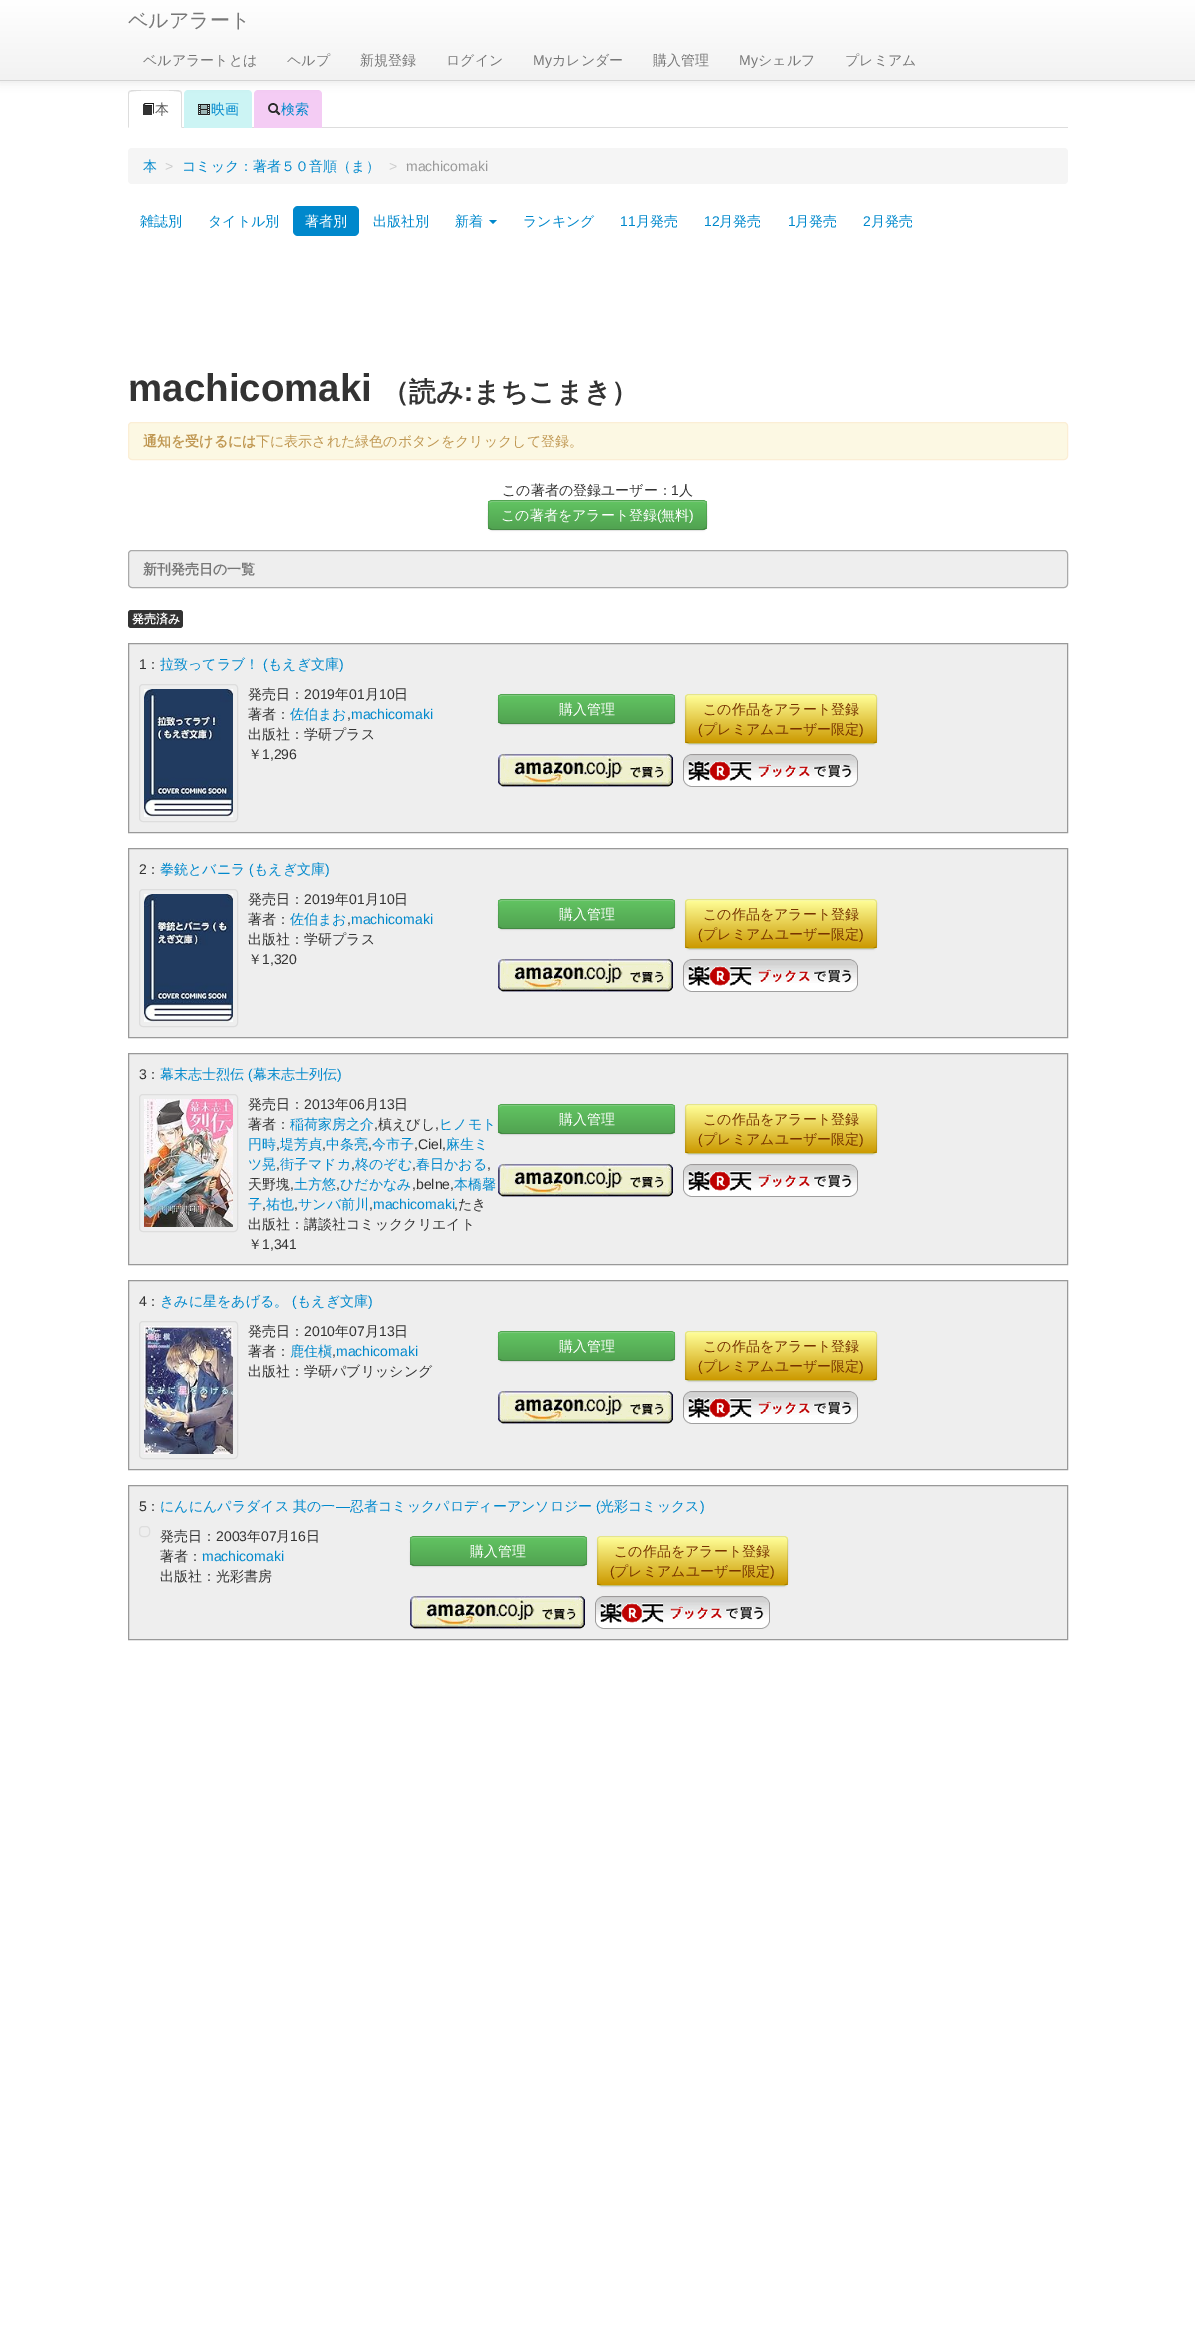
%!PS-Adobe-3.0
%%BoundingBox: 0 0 1195 2325
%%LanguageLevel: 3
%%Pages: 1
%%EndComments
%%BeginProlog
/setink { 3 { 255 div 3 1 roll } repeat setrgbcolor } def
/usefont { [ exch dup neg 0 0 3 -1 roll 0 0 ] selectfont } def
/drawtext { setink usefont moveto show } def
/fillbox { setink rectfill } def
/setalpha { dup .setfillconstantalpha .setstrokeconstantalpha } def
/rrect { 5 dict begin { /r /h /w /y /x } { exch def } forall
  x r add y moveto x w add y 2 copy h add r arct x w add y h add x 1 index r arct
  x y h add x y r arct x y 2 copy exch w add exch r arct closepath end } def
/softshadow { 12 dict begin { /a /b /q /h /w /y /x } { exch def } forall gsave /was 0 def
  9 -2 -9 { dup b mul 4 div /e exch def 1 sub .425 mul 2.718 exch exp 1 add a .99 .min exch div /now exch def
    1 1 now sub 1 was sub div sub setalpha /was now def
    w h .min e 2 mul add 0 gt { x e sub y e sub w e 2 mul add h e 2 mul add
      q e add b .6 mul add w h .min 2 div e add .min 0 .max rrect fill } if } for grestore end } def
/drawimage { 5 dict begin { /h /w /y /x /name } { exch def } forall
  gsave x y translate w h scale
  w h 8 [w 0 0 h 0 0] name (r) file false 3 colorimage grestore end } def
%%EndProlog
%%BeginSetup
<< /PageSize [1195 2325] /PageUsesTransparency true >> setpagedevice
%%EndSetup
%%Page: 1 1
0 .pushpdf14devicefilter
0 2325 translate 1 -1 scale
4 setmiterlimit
0 0 1195 2325 255 255 255 fillbox
221 221 221 setink
132 90 moveto 129 91 lineto 130 92 lineto 131 90 179 90 180 92 curveto 181 91 lineto 178 90 lineto closepath fill
182 128 moveto 182 94 lineto 182 93 181.5 92 181 91 curveto 180 92 lineto 181 92 181 93 181 94 curveto 181 127 lineto closepath 128 128 moveto 129 127 lineto 129 94 lineto 129 93 129 92 130 92 curveto 129 91 lineto 128.5 92 128 93 128 94 curveto closepath fill
182 127 886 1 221 221 221 fillbox
204 244 244 setink
188 90 moveto 248 90 lineto 250 90 252 92 252 94 curveto 252 128 lineto 184 128 lineto 184 94 lineto 184 92 186 90 188 90 curveto closepath fill
244 204 244 setink
258 90 moveto 318 90 lineto 320 90 322 92 322 94 curveto 322 128 lineto 254 128 lineto 254 94 lineto 254 92 256 90 258 90 curveto closepath fill
0 0 0 setink
0 1 1195 81 0 5 0.1 softshadow
gsave 0 0 moveto 1195 0 lineto 1195 80 lineto 0 80 lineto closepath clip newpath
<< /ShadingType 2 /ColorSpace /DeviceRGB /Coords [598 0 598 80] /Extend [true true] /Function << /FunctionType 2 /Domain [0 1] /C0 [1 1 1] /C1 [0.949 0.949 0.949] /N 1 >> >> shfill grestore
0 80 1195 1 212 212 212 fillbox
(ベルアラート) 128 27 /WenQuanYiZenHei-Medium 20 119 119 119 drawtext
(ベルアラートとは) 143 65 /WenQuanYiZenHei-Medium 14 119 119 119 drawtext
(ヘルプ) 287 65 /WenQuanYiZenHei-Medium 14 119 119 119 drawtext
(新規登録) 360 65 /WenQuanYiZenHei-Medium 14 119 119 119 drawtext
(ログイン) 446 65 /WenQuanYiZenHei-Medium 14 119 119 119 drawtext
(My) 533 65 /LiberationSans-Regular 14 119 119 119 drawtext
(カレンダー) 552 65 /WenQuanYiZenHei-Medium 14 119 119 119 drawtext
(購入管理) 653 65 /WenQuanYiZenHei-Medium 14 119 119 119 drawtext
(My) 739 65 /LiberationSans-Regular 14 119 119 119 drawtext
(シェルフ) 758 65 /WenQuanYiZenHei-Medium 14 119 119 119 drawtext
(プレミアム) 845 65 /WenQuanYiZenHei-Medium 14 119 119 119 drawtext
(assets/img1.rgb) 143 103 11 12 drawimage
(本) 155 114 /WenQuanYiZenHei-Medium 14 85 85 85 drawtext
(assets/img2.rgb) 198 104 12 12 drawimage
(映画) 211 114 /WenQuanYiZenHei-Medium 14 0 136 204 drawtext
(assets/img3.rgb) 268 103 13 13 drawimage
(検索) 281 114 /WenQuanYiZenHei-Medium 14 0 136 204 drawtext
245 245 245 setink
128 148 940 36 4 rrect fill
(本) 143 171 /WenQuanYiZenHei-Medium 14 0 136 204 drawtext
(>) 165 171 /LiberationSans-Regular 14 204 204 204 drawtext
(コミック：著者５０音順（ま）) 182 171 /WenQuanYiZenHei-Medium 14 0 136 204 drawtext
(>) 389 171 /LiberationSans-Regular 14 204 204 204 drawtext
(machicomaki) 406 171 /LiberationSans-Regular 14 153 153 153 drawtext
(雑誌別) 140 226 /WenQuanYiZenHei-Medium 14 0 136 204 drawtext
(タイトル別) 208 226 /WenQuanYiZenHei-Medium 14 0 136 204 drawtext
293 206 66 30 5 rrect fill
(著者別) 305 226 /WenQuanYiZenHei-Medium 14 255 255 255 drawtext
(出版社別) 373 226 /WenQuanYiZenHei-Medium 14 0 136 204 drawtext
(新着) 455 226 /WenQuanYiZenHei-Medium 14 0 136 204 drawtext
489 220 moveto 497 220 lineto 493 224 lineto closepath fill
(ランキング) 523 226 /WenQuanYiZenHei-Medium 14 0 136 204 drawtext
(11) 620 226 /LiberationSans-Regular 14 0 136 204 drawtext
(月発売) 636 226 /WenQuanYiZenHei-Medium 14 0 136 204 drawtext
(12) 704 226 /LiberationSans-Regular 14 0 136 204 drawtext
(月発売) 719 226 /WenQuanYiZenHei-Medium 14 0 136 204 drawtext
(1) 788 226 /LiberationSans-Regular 14 0 136 204 drawtext
(月発売) 795 226 /WenQuanYiZenHei-Medium 14 0 136 204 drawtext
(2) 863 226 /LiberationSans-Regular 14 0 136 204 drawtext
(月発売) 871 226 /WenQuanYiZenHei-Medium 14 0 136 204 drawtext
(machicomaki) 128 401 /LiberationSans-Bold 38.5 51 51 51 drawtext
(（読み) 382 401 /WenQuanYiZenHei-Bold 27 51 51 51 drawtext
(:) 464 401 /LiberationSans-Bold 27 51 51 51 drawtext
(まちこまき）) 473 401 /WenQuanYiZenHei-Bold 27 51 51 51 drawtext
252 248 227 setink
128.5 422.5 939 37 3.5 rrect gsave fill grestore
251 238 213 setink
stroke
(通知を受けるには) 143 446 /WenQuanYiZenHei-Bold 14 192 152 83 drawtext
(下に表示された緑色のボタンをクリックして登録。) 256 446 /WenQuanYiZenHei-Medium 14 192 152 83 drawtext
(この著者の登録ユーザー：) 502 495 /WenQuanYiZenHei-Medium 14 51 51 51 drawtext
(1) 671 495 /LiberationSans-Regular 14 51 51 51 drawtext
(人) 679 495 /WenQuanYiZenHei-Medium 14 51 51 51 drawtext
0 0 0 setink
488 501 219 30 4 1 0.05 softshadow
91 183 91 setink
488 500 219 30 4 rrect fill
gsave
488 500 219 30 4 rrect clip newpath
gsave 488 501 moveto 707 501 lineto 707 529 lineto 488 529 lineto closepath clip newpath
<< /ShadingType 2 /ColorSpace /DeviceRGB /Coords [598 501 598 529] /Extend [true true] /Function << /FunctionType 2 /Domain [0 1] /C0 [0.384 0.769 0.384] /C1 [0.318 0.639 0.318] /N 1 >> >> shfill grestore
grestore
129 207 129 setink
492 502 moveto 703 502 lineto 705 502 706 503 706 505 curveto 706 504 lineto 706 502 705 501 703 501 curveto 492 501 lineto 490 501 489 502 489 504 curveto 489 505 lineto 489 503 490 502 492 502 curveto closepath fill
0.25 setalpha
0 0 0 setink
705.5 528.5 moveto 705 529 704 529.5 703 529.5 curveto 492 529.5 lineto 491 529.5 490 529 489.5 528.5 curveto stroke
0.1 setalpha
489.5 528.5 moveto 487 526 488.5 514.5 488.5 511.5 curveto 488.5 508.5 487 500.5 492 500.5 curveto 703 500.5 lineto 708 500.5 706.5 508.5 706.5 511.5 curveto 706.5 514.5 708 526 705.5 528.5 curveto stroke
1 setalpha
(この著者をアラート登録) 501 520 /WenQuanYiZenHei-Medium 14 255 255 255 drawtext
(\() 657 520 /LiberationSans-Regular 14 255 255 255 drawtext
(無料) 661 520 /WenQuanYiZenHei-Medium 14 255 255 255 drawtext
(\)) 689 520 /LiberationSans-Regular 14 255 255 255 drawtext
238 238 238 setink
128.5 550.5 939 37 3.5 rrect gsave fill grestore
170 170 170 setink
stroke
(新刊発売日の一覧) 143 574 /WenQuanYiZenHei-Bold 14 119 119 119 drawtext
51 51 51 setink
128 610 55 18 3 rrect fill
(発売済み) 132 623 /WenQuanYiZenHei-Bold 12 255 255 255 drawtext
238 238 238 setink
128.5 643.5 moveto 1067.5 643.5 lineto 1067.5 832.5 lineto 128.5 832.5 lineto closepath gsave fill grestore
153 153 153 setink
stroke
(1) 139 669 /LiberationSans-Regular 14 51 51 51 drawtext
(：) 146 669 /WenQuanYiZenHei-Medium 14 51 51 51 drawtext
(拉致ってラブ！) 160 669 /WenQuanYiZenHei-Medium 14 0 136 204 drawtext
(\() 263 669 /LiberationSans-Regular 14 0 136 204 drawtext
(もえぎ文庫) 268 669 /WenQuanYiZenHei-Medium 14 0 136 204 drawtext
(\)) 339 669 /LiberationSans-Regular 14 0 136 204 drawtext
221 221 221 setink
139.5 684.5 98 137 3.5 rrect stroke
(assets/img4.rgb) 144 689 89 128 drawimage
(発売日：) 248 699 /WenQuanYiZenHei-Medium 14 51 51 51 drawtext
(2019) 304 699 /LiberationSans-Regular 14 51 51 51 drawtext
(年) 335 699 /WenQuanYiZenHei-Medium 14 51 51 51 drawtext
(01) 349 699 /LiberationSans-Regular 14 51 51 51 drawtext
(月) 365 699 /WenQuanYiZenHei-Medium 14 51 51 51 drawtext
(10) 379 699 /LiberationSans-Regular 14 51 51 51 drawtext
(日) 394 699 /WenQuanYiZenHei-Medium 14 51 51 51 drawtext
(著者：) 248 719 /WenQuanYiZenHei-Medium 14 51 51 51 drawtext
(佐伯まお) 290 719 /WenQuanYiZenHei-Medium 14 0 136 204 drawtext
(,) 347 719 /LiberationSans-Regular 14 51 51 51 drawtext
(machicomaki) 351 719 /LiberationSans-Regular 14 0 136 204 drawtext
(出版社：学研プラス) 248 739 /WenQuanYiZenHei-Medium 14 51 51 51 drawtext
(￥) 248 759 /WenQuanYiZenHei-Medium 14 51 51 51 drawtext
(1,296) 262 759 /LiberationSans-Regular 14 51 51 51 drawtext
0 0 0 setink
498 695 177 30 4 1 0.05 softshadow
91 183 91 setink
498 694 177 30 4 rrect fill
gsave
498 694 177 30 4 rrect clip newpath
gsave 498 695 moveto 675 695 lineto 675 723 lineto 498 723 lineto closepath clip newpath
<< /ShadingType 2 /ColorSpace /DeviceRGB /Coords [587 695 587 723] /Extend [true true] /Function << /FunctionType 2 /Domain [0 1] /C0 [0.384 0.769 0.384] /C1 [0.318 0.639 0.318] /N 1 >> >> shfill grestore
grestore
129 207 129 setink
502 696 moveto 671 696 lineto 673 696 674 697 674 699 curveto 674 698 lineto 674 696 673 695 671 695 curveto 502 695 lineto 500 695 499 696 499 698 curveto 499 699 lineto 499 697 500 696 502 696 curveto closepath fill
0.25 setalpha
0 0 0 setink
673.5 722.5 moveto 671 723.5 lineto 501.5 723.5 lineto 499.5 722.5 lineto stroke
0.1 setalpha
499.5 722.5 moveto 497.5 720.5 498.5 712 498.5 709 curveto 498.5 701.5 lineto 498.5 699 498 694.5 502 694.5 curveto 671 694.5 lineto 675 694.5 674.5 699 674.5 701.5 curveto 674.5 709 lineto 674.5 712 675.5 720.5 673.5 722.5 curveto stroke
1 setalpha
(購入管理) 559 714 /WenQuanYiZenHei-Medium 14 255 255 255 drawtext
0 0 0 setink
685 695 192 50 4 1 0.05 softshadow
255 255 153 setink
685 694 192 50 4 rrect fill
gsave
685 694 192 50 4 rrect clip newpath
gsave 685 695 moveto 877 695 lineto 877 743 lineto 685 743 lineto closepath clip newpath
<< /ShadingType 2 /ColorSpace /DeviceRGB /Coords [781 695 781 743] /Extend [true true] /Function << /FunctionType 2 /Domain [0 1] /C0 [1 1 0.6] /C1 [0.8 0.6 0] /N 1 >> >> shfill grestore
grestore
254 254 172 setink
689 696 moveto 873 696 lineto 875 696 876 697 876 699 curveto 876 697 875 695 873 695 curveto 689 695 lineto 687 695 686 697 686 699 curveto 686 697 687 696 689 696 curveto closepath fill
0.25 setalpha
0 0 0 setink
875.5 742.5 moveto 873.5 743.5 lineto 719.5 743.5 lineto 689 743.5 lineto 686.5 742.5 lineto stroke
0.1 setalpha
686.5 742.5 moveto 686 742 685.5 741 685.5 740 curveto 685.5 698 lineto 685.5 697 686 696 686.5 695.5 curveto 687 695 688 694.5 689 694.5 curveto 873 694.5 lineto 874 694.5 875 695 875.5 695.5 curveto 876 696 876.5 697 876.5 698 curveto 876.5 740 lineto 876.5 741 876 742 875.5 742.5 curveto stroke
1 setalpha
(この作品をアラート登録) 703 714 /WenQuanYiZenHei-Medium 14 119 51 0 drawtext
(\() 698 734 /LiberationSans-Regular 14 119 51 0 drawtext
(プレミアムユーザー限定) 703 734 /WenQuanYiZenHei-Medium 14 119 51 0 drawtext
(\)) 859 734 /LiberationSans-Regular 14 119 51 0 drawtext
(assets/img5.rgb) 498 754 175 33 drawimage
(assets/img6.rgb) 683 754 175 33 drawimage
238 238 238 setink
128.5 848.5 moveto 1067.5 848.5 lineto 1067.5 1037.5 lineto 128.5 1037.5 lineto closepath gsave fill grestore
153 153 153 setink
stroke
(2) 139 874 /LiberationSans-Regular 14 51 51 51 drawtext
(：) 146 874 /WenQuanYiZenHei-Medium 14 51 51 51 drawtext
(拳銃とバニラ) 160 874 /WenQuanYiZenHei-Medium 14 0 136 204 drawtext
(\() 249 874 /LiberationSans-Regular 14 0 136 204 drawtext
(もえぎ文庫) 254 874 /WenQuanYiZenHei-Medium 14 0 136 204 drawtext
(\)) 325 874 /LiberationSans-Regular 14 0 136 204 drawtext
221 221 221 setink
139.5 889.5 98 137 3.5 rrect stroke
(assets/img7.rgb) 144 894 89 128 drawimage
(発売日：) 248 904 /WenQuanYiZenHei-Medium 14 51 51 51 drawtext
(2019) 304 904 /LiberationSans-Regular 14 51 51 51 drawtext
(年) 335 904 /WenQuanYiZenHei-Medium 14 51 51 51 drawtext
(01) 349 904 /LiberationSans-Regular 14 51 51 51 drawtext
(月) 365 904 /WenQuanYiZenHei-Medium 14 51 51 51 drawtext
(10) 379 904 /LiberationSans-Regular 14 51 51 51 drawtext
(日) 394 904 /WenQuanYiZenHei-Medium 14 51 51 51 drawtext
(著者：) 248 924 /WenQuanYiZenHei-Medium 14 51 51 51 drawtext
(佐伯まお) 290 924 /WenQuanYiZenHei-Medium 14 0 136 204 drawtext
(,) 347 924 /LiberationSans-Regular 14 51 51 51 drawtext
(machicomaki) 351 924 /LiberationSans-Regular 14 0 136 204 drawtext
(出版社：学研プラス) 248 944 /WenQuanYiZenHei-Medium 14 51 51 51 drawtext
(￥) 248 964 /WenQuanYiZenHei-Medium 14 51 51 51 drawtext
(1,320) 262 964 /LiberationSans-Regular 14 51 51 51 drawtext
0 0 0 setink
498 900 177 30 4 1 0.05 softshadow
91 183 91 setink
498 899 177 30 4 rrect fill
gsave
498 899 177 30 4 rrect clip newpath
gsave 498 900 moveto 675 900 lineto 675 928 lineto 498 928 lineto closepath clip newpath
<< /ShadingType 2 /ColorSpace /DeviceRGB /Coords [587 900 587 928] /Extend [true true] /Function << /FunctionType 2 /Domain [0 1] /C0 [0.384 0.769 0.384] /C1 [0.318 0.639 0.318] /N 1 >> >> shfill grestore
grestore
129 207 129 setink
502 901 moveto 671 901 lineto 673 901 674 902 674 904 curveto 674 903 lineto 674 901 673 900 671 900 curveto 502 900 lineto 500 900 499 901 499 903 curveto 499 904 lineto 499 902 500 901 502 901 curveto closepath fill
0.25 setalpha
0 0 0 setink
673.5 927.5 moveto 671 928.5 lineto 501.5 928.5 lineto 499.5 927.5 lineto stroke
0.1 setalpha
499.5 927.5 moveto 497.5 925.5 498.5 917 498.5 914 curveto 498.5 906.5 lineto 498.5 904 498 899.5 502 899.5 curveto 671 899.5 lineto 675 899.5 674.5 904 674.5 906.5 curveto 674.5 914 lineto 674.5 917 675.5 925.5 673.5 927.5 curveto stroke
1 setalpha
(購入管理) 559 919 /WenQuanYiZenHei-Medium 14 255 255 255 drawtext
0 0 0 setink
685 900 192 50 4 1 0.05 softshadow
255 255 153 setink
685 899 192 50 4 rrect fill
gsave
685 899 192 50 4 rrect clip newpath
gsave 685 900 moveto 877 900 lineto 877 948 lineto 685 948 lineto closepath clip newpath
<< /ShadingType 2 /ColorSpace /DeviceRGB /Coords [781 900 781 948] /Extend [true true] /Function << /FunctionType 2 /Domain [0 1] /C0 [1 1 0.6] /C1 [0.8 0.6 0] /N 1 >> >> shfill grestore
grestore
254 254 172 setink
689 901 moveto 873 901 lineto 875 901 876 902 876 904 curveto 876 902 875 900 873 900 curveto 689 900 lineto 687 900 686 902 686 904 curveto 686 902 687 901 689 901 curveto closepath fill
0.25 setalpha
0 0 0 setink
875.5 947.5 moveto 873.5 948.5 lineto 719.5 948.5 lineto 689 948.5 lineto 686.5 947.5 lineto stroke
0.1 setalpha
686.5 947.5 moveto 686 947 685.5 946 685.5 945 curveto 685.5 903 lineto 685.5 902 686 901 686.5 900.5 curveto 687 900 688 899.5 689 899.5 curveto 873 899.5 lineto 874 899.5 875 900 875.5 900.5 curveto 876 901 876.5 902 876.5 903 curveto 876.5 945 lineto 876.5 946 876 947 875.5 947.5 curveto stroke
1 setalpha
(この作品をアラート登録) 703 919 /WenQuanYiZenHei-Medium 14 119 51 0 drawtext
(\() 698 939 /LiberationSans-Regular 14 119 51 0 drawtext
(プレミアムユーザー限定) 703 939 /WenQuanYiZenHei-Medium 14 119 51 0 drawtext
(\)) 859 939 /LiberationSans-Regular 14 119 51 0 drawtext
(assets/img5.rgb) 498 959 175 33 drawimage
(assets/img6.rgb) 683 959 175 33 drawimage
238 238 238 setink
128.5 1053.5 moveto 1067.5 1053.5 lineto 1067.5 1264.5 lineto 128.5 1264.5 lineto closepath gsave fill grestore
153 153 153 setink
stroke
(3) 139 1079 /LiberationSans-Regular 14 51 51 51 drawtext
(：) 146 1079 /WenQuanYiZenHei-Medium 14 51 51 51 drawtext
(幕末志士烈伝) 160 1079 /WenQuanYiZenHei-Medium 14 0 136 204 drawtext
(\() 248 1079 /LiberationSans-Regular 14 0 136 204 drawtext
(幕末志士列伝) 253 1079 /WenQuanYiZenHei-Medium 14 0 136 204 drawtext
(\)) 337 1079 /LiberationSans-Regular 14 0 136 204 drawtext
221 221 221 setink
139.5 1094.5 98 137 3.5 rrect stroke
(assets/img8.rgb) 144 1099 89 128 drawimage
(発売日：) 248 1109 /WenQuanYiZenHei-Medium 14 51 51 51 drawtext
(2013) 304 1109 /LiberationSans-Regular 14 51 51 51 drawtext
(年) 335 1109 /WenQuanYiZenHei-Medium 14 51 51 51 drawtext
(06) 349 1109 /LiberationSans-Regular 14 51 51 51 drawtext
(月) 365 1109 /WenQuanYiZenHei-Medium 14 51 51 51 drawtext
(13) 379 1109 /LiberationSans-Regular 14 51 51 51 drawtext
(日) 394 1109 /WenQuanYiZenHei-Medium 14 51 51 51 drawtext
(著者：) 248 1129 /WenQuanYiZenHei-Medium 14 51 51 51 drawtext
(稲荷家房之介) 290 1129 /WenQuanYiZenHei-Medium 14 0 136 204 drawtext
(,) 374 1129 /LiberationSans-Regular 14 51 51 51 drawtext
(槙えびし) 378 1129 /WenQuanYiZenHei-Medium 14 51 51 51 drawtext
(,) 435 1129 /LiberationSans-Regular 14 51 51 51 drawtext
(ヒノモト) 439 1129 /WenQuanYiZenHei-Medium 14 0 136 204 drawtext
(円時) 248 1149 /WenQuanYiZenHei-Medium 14 0 136 204 drawtext
(,) 276 1149 /LiberationSans-Regular 14 51 51 51 drawtext
(堤芳貞) 280 1149 /WenQuanYiZenHei-Medium 14 0 136 204 drawtext
(,) 322 1149 /LiberationSans-Regular 14 51 51 51 drawtext
(中条亮) 326 1149 /WenQuanYiZenHei-Medium 14 0 136 204 drawtext
(,) 368 1149 /LiberationSans-Regular 14 51 51 51 drawtext
(今市子) 372 1149 /WenQuanYiZenHei-Medium 14 0 136 204 drawtext
(,Ciel,) 414 1149 /LiberationSans-Regular 14 51 51 51 drawtext
(麻生ミ) 446 1149 /WenQuanYiZenHei-Medium 14 0 136 204 drawtext
(ツ晃) 248 1169 /WenQuanYiZenHei-Medium 14 0 136 204 drawtext
(,) 276 1169 /LiberationSans-Regular 14 51 51 51 drawtext
(街子マドカ) 280 1169 /WenQuanYiZenHei-Medium 14 0 136 204 drawtext
(,) 351 1169 /LiberationSans-Regular 14 51 51 51 drawtext
(柊のぞむ) 355 1169 /WenQuanYiZenHei-Medium 14 0 136 204 drawtext
(,) 412 1169 /LiberationSans-Regular 14 51 51 51 drawtext
(春日かおる) 416 1169 /WenQuanYiZenHei-Medium 14 0 136 204 drawtext
(,) 487 1169 /LiberationSans-Regular 14 51 51 51 drawtext
(天野塊) 248 1189 /WenQuanYiZenHei-Medium 14 51 51 51 drawtext
(,) 290 1189 /LiberationSans-Regular 14 51 51 51 drawtext
(土方悠) 294 1189 /WenQuanYiZenHei-Medium 14 0 136 204 drawtext
(,) 336 1189 /LiberationSans-Regular 14 51 51 51 drawtext
(ひだかなみ) 340 1189 /WenQuanYiZenHei-Medium 14 0 136 204 drawtext
(,belne,) 412 1189 /LiberationSans-Regular 14 51 51 51 drawtext
(本橋馨) 454 1189 /WenQuanYiZenHei-Medium 14 0 136 204 drawtext
(子) 248 1209 /WenQuanYiZenHei-Medium 14 0 136 204 drawtext
(,) 262 1209 /LiberationSans-Regular 14 51 51 51 drawtext
(祐也) 266 1209 /WenQuanYiZenHei-Medium 14 0 136 204 drawtext
(,) 294 1209 /LiberationSans-Regular 14 51 51 51 drawtext
(サンバ前川) 298 1209 /WenQuanYiZenHei-Medium 14 0 136 204 drawtext
(,) 369 1209 /LiberationSans-Regular 14 51 51 51 drawtext
(machicomaki) 373 1209 /LiberationSans-Regular 14 0 136 204 drawtext
(,) 454 1209 /LiberationSans-Regular 14 51 51 51 drawtext
(たき) 458 1209 /WenQuanYiZenHei-Medium 14 51 51 51 drawtext
(出版社：講談社コミッククリエイト) 248 1229 /WenQuanYiZenHei-Medium 14 51 51 51 drawtext
(￥) 248 1249 /WenQuanYiZenHei-Medium 14 51 51 51 drawtext
(1,341) 262 1249 /LiberationSans-Regular 14 51 51 51 drawtext
0 0 0 setink
498 1105 177 30 4 1 0.05 softshadow
91 183 91 setink
498 1104 177 30 4 rrect fill
gsave
498 1104 177 30 4 rrect clip newpath
gsave 498 1105 moveto 675 1105 lineto 675 1133 lineto 498 1133 lineto closepath clip newpath
<< /ShadingType 2 /ColorSpace /DeviceRGB /Coords [587 1105 587 1133] /Extend [true true] /Function << /FunctionType 2 /Domain [0 1] /C0 [0.384 0.769 0.384] /C1 [0.318 0.639 0.318] /N 1 >> >> shfill grestore
grestore
129 207 129 setink
502 1106 moveto 671 1106 lineto 673 1106 674 1107 674 1109 curveto 674 1108 lineto 674 1106 673 1105 671 1105 curveto 502 1105 lineto 500 1105 499 1106 499 1108 curveto 499 1109 lineto 499 1107 500 1106 502 1106 curveto closepath fill
0.25 setalpha
0 0 0 setink
673.5 1132.5 moveto 671 1133.5 lineto 501.5 1133.5 lineto 499.5 1132.5 lineto stroke
0.1 setalpha
499.5 1132.5 moveto 497.5 1130.5 498.5 1122 498.5 1119 curveto 498.5 1111.5 lineto 498.5 1109 498 1104.5 502 1104.5 curveto 671 1104.5 lineto 675 1104.5 674.5 1109 674.5 1111.5 curveto 674.5 1119 lineto 674.5 1122 675.5 1130.5 673.5 1132.5 curveto stroke
1 setalpha
(購入管理) 559 1124 /WenQuanYiZenHei-Medium 14 255 255 255 drawtext
0 0 0 setink
685 1105 192 50 4 1 0.05 softshadow
255 255 153 setink
685 1104 192 50 4 rrect fill
gsave
685 1104 192 50 4 rrect clip newpath
gsave 685 1105 moveto 877 1105 lineto 877 1153 lineto 685 1153 lineto closepath clip newpath
<< /ShadingType 2 /ColorSpace /DeviceRGB /Coords [781 1105 781 1153] /Extend [true true] /Function << /FunctionType 2 /Domain [0 1] /C0 [1 1 0.6] /C1 [0.8 0.6 0] /N 1 >> >> shfill grestore
grestore
254 254 172 setink
689 1106 moveto 873 1106 lineto 875 1106 876 1107 876 1109 curveto 876 1107 875 1105 873 1105 curveto 689 1105 lineto 687 1105 686 1107 686 1109 curveto 686 1107 687 1106 689 1106 curveto closepath fill
0.25 setalpha
0 0 0 setink
875.5 1152.5 moveto 873 1153.5 lineto 688.5 1153.5 lineto 686.5 1152.5 lineto stroke
0.1 setalpha
686.5 1152.5 moveto 686 1152 685.5 1151 685.5 1150 curveto 685.5 1108 lineto 685.5 1107 686 1106 686.5 1105.5 curveto 687 1105 688 1104.5 689 1104.5 curveto 873 1104.5 lineto 874 1104.5 875 1105 875.5 1105.5 curveto 876 1106 876.5 1107 876.5 1108 curveto 876.5 1150 lineto 876.5 1151 876 1152 875.5 1152.5 curveto stroke
1 setalpha
(この作品をアラート登録) 703 1124 /WenQuanYiZenHei-Medium 14 119 51 0 drawtext
(\() 698 1144 /LiberationSans-Regular 14 119 51 0 drawtext
(プレミアムユーザー限定) 703 1144 /WenQuanYiZenHei-Medium 14 119 51 0 drawtext
(\)) 859 1144 /LiberationSans-Regular 14 119 51 0 drawtext
(assets/img5.rgb) 498 1164 175 33 drawimage
(assets/img6.rgb) 683 1164 175 33 drawimage
238 238 238 setink
128.5 1280.5 moveto 1067.5 1280.5 lineto 1067.5 1469.5 lineto 128.5 1469.5 lineto closepath gsave fill grestore
153 153 153 setink
stroke
(4) 139 1306 /LiberationSans-Regular 14 51 51 51 drawtext
(：) 146 1306 /WenQuanYiZenHei-Medium 14 51 51 51 drawtext
(きみに星をあげる。) 160 1306 /WenQuanYiZenHei-Medium 14 0 136 204 drawtext
(\() 292 1306 /LiberationSans-Regular 14 0 136 204 drawtext
(もえぎ文庫) 297 1306 /WenQuanYiZenHei-Medium 14 0 136 204 drawtext
(\)) 368 1306 /LiberationSans-Regular 14 0 136 204 drawtext
221 221 221 setink
139.5 1321.5 98 137 3.5 rrect stroke
(assets/img9.rgb) 144 1326 89 128 drawimage
(発売日：) 248 1336 /WenQuanYiZenHei-Medium 14 51 51 51 drawtext
(2010) 304 1336 /LiberationSans-Regular 14 51 51 51 drawtext
(年) 335 1336 /WenQuanYiZenHei-Medium 14 51 51 51 drawtext
(07) 349 1336 /LiberationSans-Regular 14 51 51 51 drawtext
(月) 365 1336 /WenQuanYiZenHei-Medium 14 51 51 51 drawtext
(13) 379 1336 /LiberationSans-Regular 14 51 51 51 drawtext
(日) 394 1336 /WenQuanYiZenHei-Medium 14 51 51 51 drawtext
(著者：) 248 1356 /WenQuanYiZenHei-Medium 14 51 51 51 drawtext
(鹿住槇) 290 1356 /WenQuanYiZenHei-Medium 14 0 136 204 drawtext
(,) 332 1356 /LiberationSans-Regular 14 51 51 51 drawtext
(machicomaki) 336 1356 /LiberationSans-Regular 14 0 136 204 drawtext
(出版社：学研パブリッシング) 248 1376 /WenQuanYiZenHei-Medium 14 51 51 51 drawtext
0 0 0 setink
498 1332 177 30 4 1 0.05 softshadow
91 183 91 setink
498 1331 177 30 4 rrect fill
gsave
498 1331 177 30 4 rrect clip newpath
gsave 498 1332 moveto 675 1332 lineto 675 1360 lineto 498 1360 lineto closepath clip newpath
<< /ShadingType 2 /ColorSpace /DeviceRGB /Coords [587 1332 587 1360] /Extend [true true] /Function << /FunctionType 2 /Domain [0 1] /C0 [0.384 0.769 0.384] /C1 [0.318 0.639 0.318] /N 1 >> >> shfill grestore
grestore
129 207 129 setink
502 1333 moveto 671 1333 lineto 673 1333 674 1334 674 1336 curveto 674 1335 lineto 674 1333 673 1332 671 1332 curveto 502 1332 lineto 500 1332 499 1333 499 1335 curveto 499 1336 lineto 499 1334 500 1333 502 1333 curveto closepath fill
0.25 setalpha
0 0 0 setink
673.5 1359.5 moveto 671 1360.5 lineto 501.5 1360.5 lineto 499.5 1359.5 lineto stroke
0.1 setalpha
499.5 1359.5 moveto 497.5 1357.5 498.5 1349 498.5 1346 curveto 498.5 1338.5 lineto 498.5 1336 498 1331.5 502 1331.5 curveto 671 1331.5 lineto 675 1331.5 674.5 1336 674.5 1338.5 curveto 674.5 1346 lineto 674.5 1349 675.5 1357.5 673.5 1359.5 curveto stroke
1 setalpha
(購入管理) 559 1351 /WenQuanYiZenHei-Medium 14 255 255 255 drawtext
0 0 0 setink
685 1332 192 50 4 1 0.05 softshadow
255 255 153 setink
685 1331 192 50 4 rrect fill
gsave
685 1331 192 50 4 rrect clip newpath
gsave 685 1332 moveto 877 1332 lineto 877 1380 lineto 685 1380 lineto closepath clip newpath
<< /ShadingType 2 /ColorSpace /DeviceRGB /Coords [781 1332 781 1380] /Extend [true true] /Function << /FunctionType 2 /Domain [0 1] /C0 [1 1 0.6] /C1 [0.8 0.6 0] /N 1 >> >> shfill grestore
grestore
254 254 172 setink
689 1333 moveto 873 1333 lineto 875 1333 876 1334 876 1336 curveto 876 1334 875 1332 873 1332 curveto 689 1332 lineto 687 1332 686 1334 686 1336 curveto 686 1334 687 1333 689 1333 curveto closepath fill
0.25 setalpha
0 0 0 setink
875.5 1379.5 moveto 873 1380.5 lineto 688.5 1380.5 lineto 686.5 1379.5 lineto stroke
0.1 setalpha
686.5 1379.5 moveto 686 1379 685.5 1378 685.5 1377 curveto 685.5 1335 lineto 685.5 1334 686 1333 686.5 1332.5 curveto 687 1332 688 1331.5 689 1331.5 curveto 873 1331.5 lineto 874 1331.5 875 1332 875.5 1332.5 curveto 876 1333 876.5 1334 876.5 1335 curveto 876.5 1377 lineto 876.5 1378 876 1379 875.5 1379.5 curveto stroke
1 setalpha
(この作品をアラート登録) 703 1351 /WenQuanYiZenHei-Medium 14 119 51 0 drawtext
(\() 698 1371 /LiberationSans-Regular 14 119 51 0 drawtext
(プレミアムユーザー限定) 703 1371 /WenQuanYiZenHei-Medium 14 119 51 0 drawtext
(\)) 859 1371 /LiberationSans-Regular 14 119 51 0 drawtext
(assets/img5.rgb) 498 1391 175 33 drawimage
(assets/img6.rgb) 683 1391 175 33 drawimage
238 238 238 setink
128.5 1485.5 moveto 1067.5 1485.5 lineto 1067.5 1639.5 lineto 128.5 1639.5 lineto closepath gsave fill grestore
153 153 153 setink
stroke
(5) 139 1511 /LiberationSans-Regular 14 51 51 51 drawtext
(：) 146 1511 /WenQuanYiZenHei-Medium 14 51 51 51 drawtext
(にんにんパラダイス 其の一) 160 1511 /WenQuanYiZenHei-Medium 14 0 136 204 drawtext
(―) 336 1511 /LiberationSans-Regular 14 0 136 204 drawtext
(忍者コミックパロディーアンソロジー) 350 1511 /WenQuanYiZenHei-Medium 14 0 136 204 drawtext
(\() 596 1511 /LiberationSans-Regular 14 0 136 204 drawtext
(光彩コミックス) 600 1511 /WenQuanYiZenHei-Medium 14 0 136 204 drawtext
(\)) 700 1511 /LiberationSans-Regular 14 0 136 204 drawtext
221 221 221 setink
139.5 1526.5 10 10 3.5 rrect stroke
(発売日：) 160 1541 /WenQuanYiZenHei-Medium 14 51 51 51 drawtext
(2003) 216 1541 /LiberationSans-Regular 14 51 51 51 drawtext
(年) 247 1541 /WenQuanYiZenHei-Medium 14 51 51 51 drawtext
(07) 261 1541 /LiberationSans-Regular 14 51 51 51 drawtext
(月) 276 1541 /WenQuanYiZenHei-Medium 14 51 51 51 drawtext
(16) 290 1541 /LiberationSans-Regular 14 51 51 51 drawtext
(日) 306 1541 /WenQuanYiZenHei-Medium 14 51 51 51 drawtext
(著者：) 160 1561 /WenQuanYiZenHei-Medium 14 51 51 51 drawtext
(machicomaki) 202 1561 /LiberationSans-Regular 14 0 136 204 drawtext
(出版社：光彩書房) 160 1581 /WenQuanYiZenHei-Medium 14 51 51 51 drawtext
0 0 0 setink
410 1537 177 30 4 1 0.05 softshadow
91 183 91 setink
410 1536 177 30 4 rrect fill
gsave
410 1536 177 30 4 rrect clip newpath
gsave 410 1537 moveto 587 1537 lineto 587 1565 lineto 410 1565 lineto closepath clip newpath
<< /ShadingType 2 /ColorSpace /DeviceRGB /Coords [499 1537 499 1565] /Extend [true true] /Function << /FunctionType 2 /Domain [0 1] /C0 [0.384 0.769 0.384] /C1 [0.318 0.639 0.318] /N 1 >> >> shfill grestore
grestore
129 207 129 setink
414 1538 moveto 583 1538 lineto 585 1538 586 1539 586 1541 curveto 586 1540 lineto 586 1538 585 1537 583 1537 curveto 414 1537 lineto 412 1537 411 1538 411 1540 curveto 411 1541 lineto 411 1539 412 1538 414 1538 curveto closepath fill
0.25 setalpha
0 0 0 setink
585.5 1564.5 moveto 583 1565.5 lineto 413.5 1565.5 lineto 411.5 1564.5 lineto stroke
0.1 setalpha
411.5 1564.5 moveto 409.5 1562.5 410.5 1554 410.5 1551 curveto 410.5 1543.5 lineto 410.5 1541 410 1536.5 414 1536.5 curveto 583 1536.5 lineto 587 1536.5 586.5 1541 586.5 1543.5 curveto 586.5 1551 lineto 586.5 1554 587.5 1562.5 585.5 1564.5 curveto stroke
1 setalpha
(購入管理) 470 1556 /WenQuanYiZenHei-Medium 14 255 255 255 drawtext
0 0 0 setink
597 1537 191 50 4 1 0.05 softshadow
255 255 153 setink
597 1536 191 50 4 rrect fill
gsave
597 1536 191 50 4 rrect clip newpath
gsave 597 1537 moveto 788 1537 lineto 788 1585 lineto 597 1585 lineto closepath clip newpath
<< /ShadingType 2 /ColorSpace /DeviceRGB /Coords [693 1537 693 1585] /Extend [true true] /Function << /FunctionType 2 /Domain [0 1] /C0 [1 1 0.6] /C1 [0.8 0.6 0] /N 1 >> >> shfill grestore
grestore
254 254 172 setink
601 1538 moveto 784 1538 lineto 786 1538 787 1539 787 1541 curveto 787 1539 786 1537 784 1537 curveto 601 1537 lineto 599 1537 598 1539 598 1541 curveto 598 1539 599 1538 601 1538 curveto closepath fill
0.25 setalpha
0 0 0 setink
786.5 1584.5 moveto 784.5 1585.5 lineto 631.5 1585.5 lineto 601 1585.5 lineto 598.5 1584.5 lineto stroke
0.1 setalpha
598.5 1584.5 moveto 598 1584 597.5 1583 597.5 1582 curveto 597.5 1540 lineto 597.5 1539 598 1538 598.5 1537.5 curveto 599 1537 600 1536.5 601 1536.5 curveto 784 1536.5 lineto 785 1536.5 786 1537 786.5 1537.5 curveto 787 1538 787.5 1539 787.5 1540 curveto 787.5 1582 lineto 787.5 1583 787 1584 786.5 1584.5 curveto stroke
1 setalpha
(この作品をアラート登録) 614 1556 /WenQuanYiZenHei-Medium 14 119 51 0 drawtext
(\() 610 1576 /LiberationSans-Regular 14 119 51 0 drawtext
(プレミアムユーザー限定) 614 1576 /WenQuanYiZenHei-Medium 14 119 51 0 drawtext
(\)) 770 1576 /LiberationSans-Regular 14 119 51 0 drawtext
(assets/img5.rgb) 410 1596 175 33 drawimage
(assets/img6.rgb) 595 1596 175 33 drawimage
.poppdf14devicefilter showpage
%%EOF
